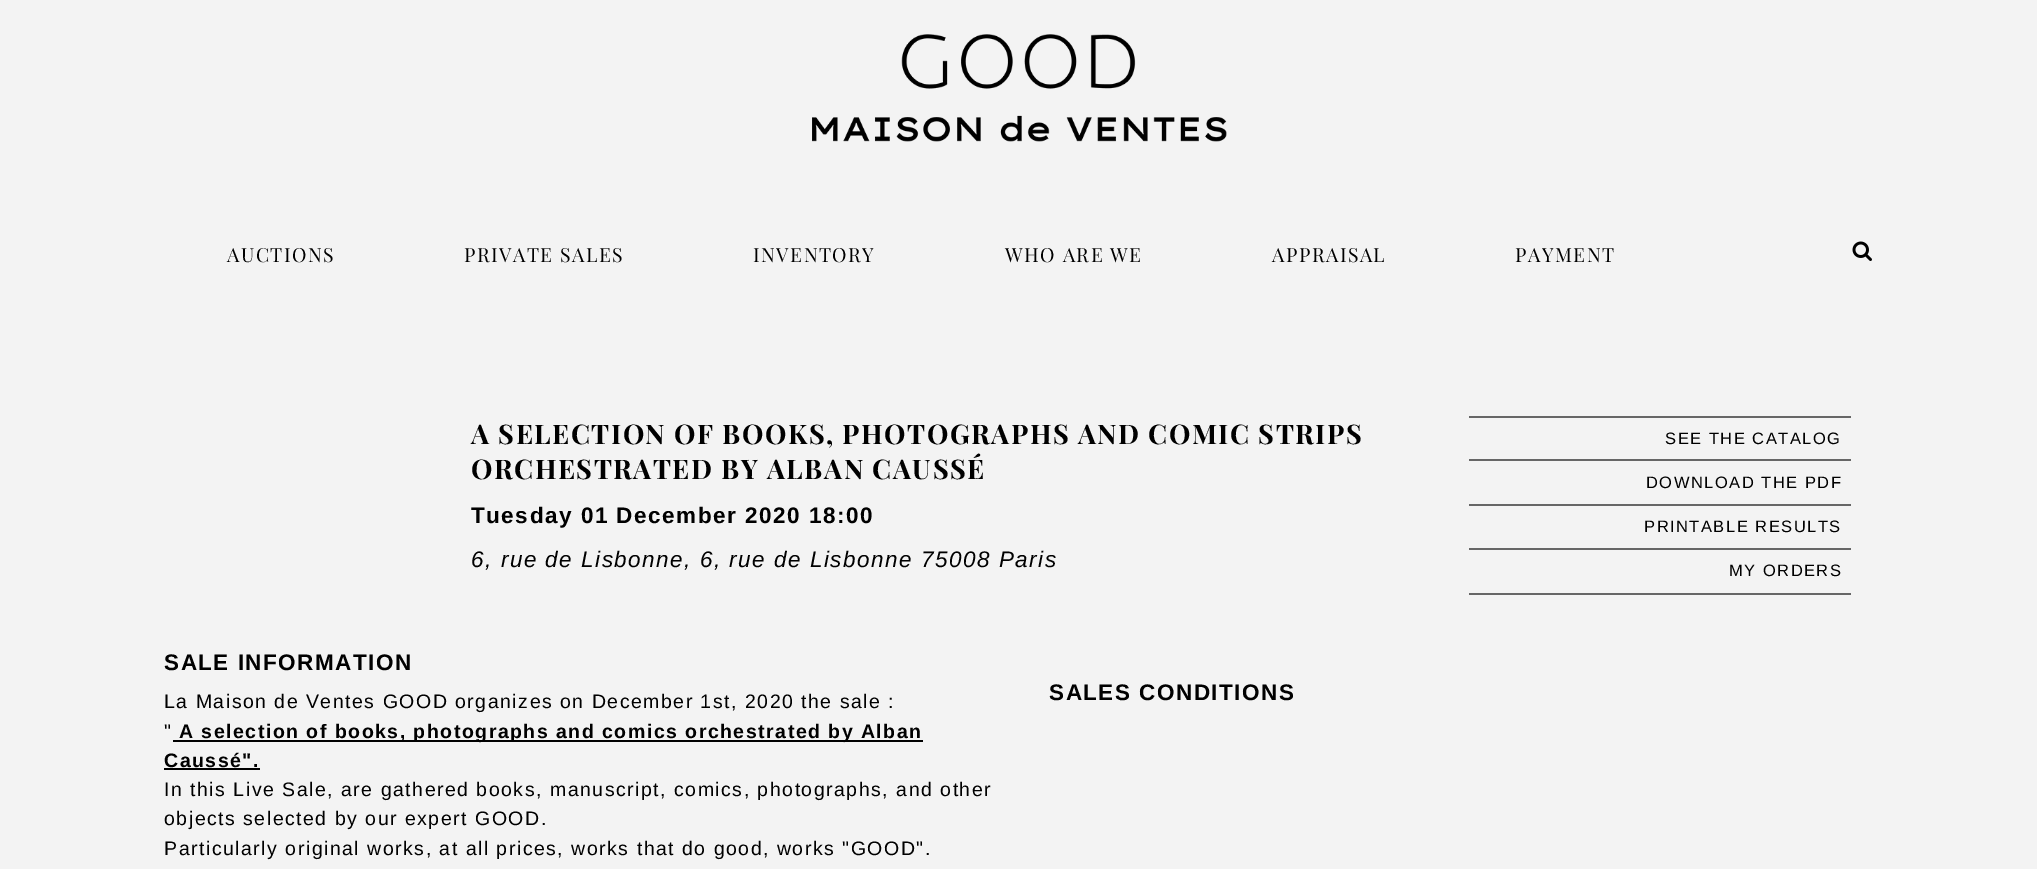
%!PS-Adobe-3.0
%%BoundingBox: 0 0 2037 869
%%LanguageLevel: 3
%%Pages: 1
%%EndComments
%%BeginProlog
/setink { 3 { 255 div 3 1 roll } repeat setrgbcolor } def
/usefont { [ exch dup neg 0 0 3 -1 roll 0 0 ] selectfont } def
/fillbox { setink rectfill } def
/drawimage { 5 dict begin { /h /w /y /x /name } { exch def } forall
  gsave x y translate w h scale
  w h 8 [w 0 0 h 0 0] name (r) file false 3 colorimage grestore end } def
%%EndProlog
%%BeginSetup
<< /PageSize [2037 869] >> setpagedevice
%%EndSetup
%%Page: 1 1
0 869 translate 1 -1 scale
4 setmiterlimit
0 0 2037 869 243 243 243 fillbox
(assets/img1.rgb) 812 34 415 108 drawimage
/PlayfairDisplay-Regular 19.5 usefont
0 0 0 setink
227 262 moveto 1.5 0 (AUCTIONS) ashow
464 262 moveto 1.5 0 (PRIVATE SALES) ashow
753 262 moveto 1.5 0 (INVENTORY) ashow
1005 262 moveto 1.5 0 (WHO ARE WE) ashow
1272 262 moveto 1.5 0 (APPRAISAL) ashow
1515 262 moveto 1.5 0 (PAYMENT) ashow
(assets/img2.rgb) 1852 241 20 20 drawimage
/PlayfairDisplay-Bold 27 usefont
471 444 moveto 1.5 0 (A SELECTION OF BOOKS, PHOTOGRAPHS AND COMIC STRIPS) ashow
471 479 moveto 1.5 0 (ORCHESTRATED BY ALBAN CAUSSÉ) ashow
/LiberationSans-Bold 22.5 usefont
471 523 moveto 1.5 0 (Tuesday 01 December 2020 18:00) ashow
/LiberationSans-Italic 22.5 usefont
471 567 moveto 1.5 0 (6, rue de Lisbonne, 6, rue de Lisbonne 75008 Paris) ashow
1469 416 382 2 102 102 102 fillbox
1469 459 382 2 102 102 102 fillbox
/LiberationSans-Regular 16.5 usefont
0 0 0 setink
1665 444 moveto 1.5 0 (SEE THE CATALOG) ashow
1469 504 382 2 102 102 102 fillbox
0 0 0 setink
1646 488 moveto 1.5 0 (DOWNLOAD THE PDF) ashow
1469 548 382 2 102 102 102 fillbox
0 0 0 setink
1644 532 moveto 1.5 0 (PRINTABLE RESULTS) ashow
1469 593 382 2 102 102 102 fillbox
0 0 0 setink
1729 576 moveto 1.5 0 (MY ORDERS) ashow
/LiberationSans-Bold 22.5 usefont
164 670 moveto 1.5 0 (SALE INFORMATION) ashow
/LiberationSans-Regular 19.5 usefont
164 708 moveto 1.5 0 (La Maison de Ventes GOOD organizes on December 1st, 2020 the sale :) ashow
164 738 moveto 1.5 0 (") ashow
173 740 750 2 0 0 0 fillbox
/LiberationSans-Bold 19.5 usefont
179 738 moveto 1.5 0 (A selection of books, photographs and comics orchestrated by Alban) ashow
164 767 moveto 1.5 0 (Caussé".) ashow
164 768 96 2 0 0 0 fillbox
/LiberationSans-Regular 19.5 usefont
164 796 moveto 1.5 0 (In this Live Sale, are gathered books, manuscript, comics, photographs, and other) ashow
164 825 moveto 1.5 0 (objects selected by our expert GOOD.) ashow
164 855 moveto 1.5 0 (Particularly original works, at all prices, works that do good, works "GOOD".) ashow
/LiberationSans-Bold 22.5 usefont
1049 700 moveto 1.5 0 (SALES CONDITIONS) ashow
showpage
%%EOF
